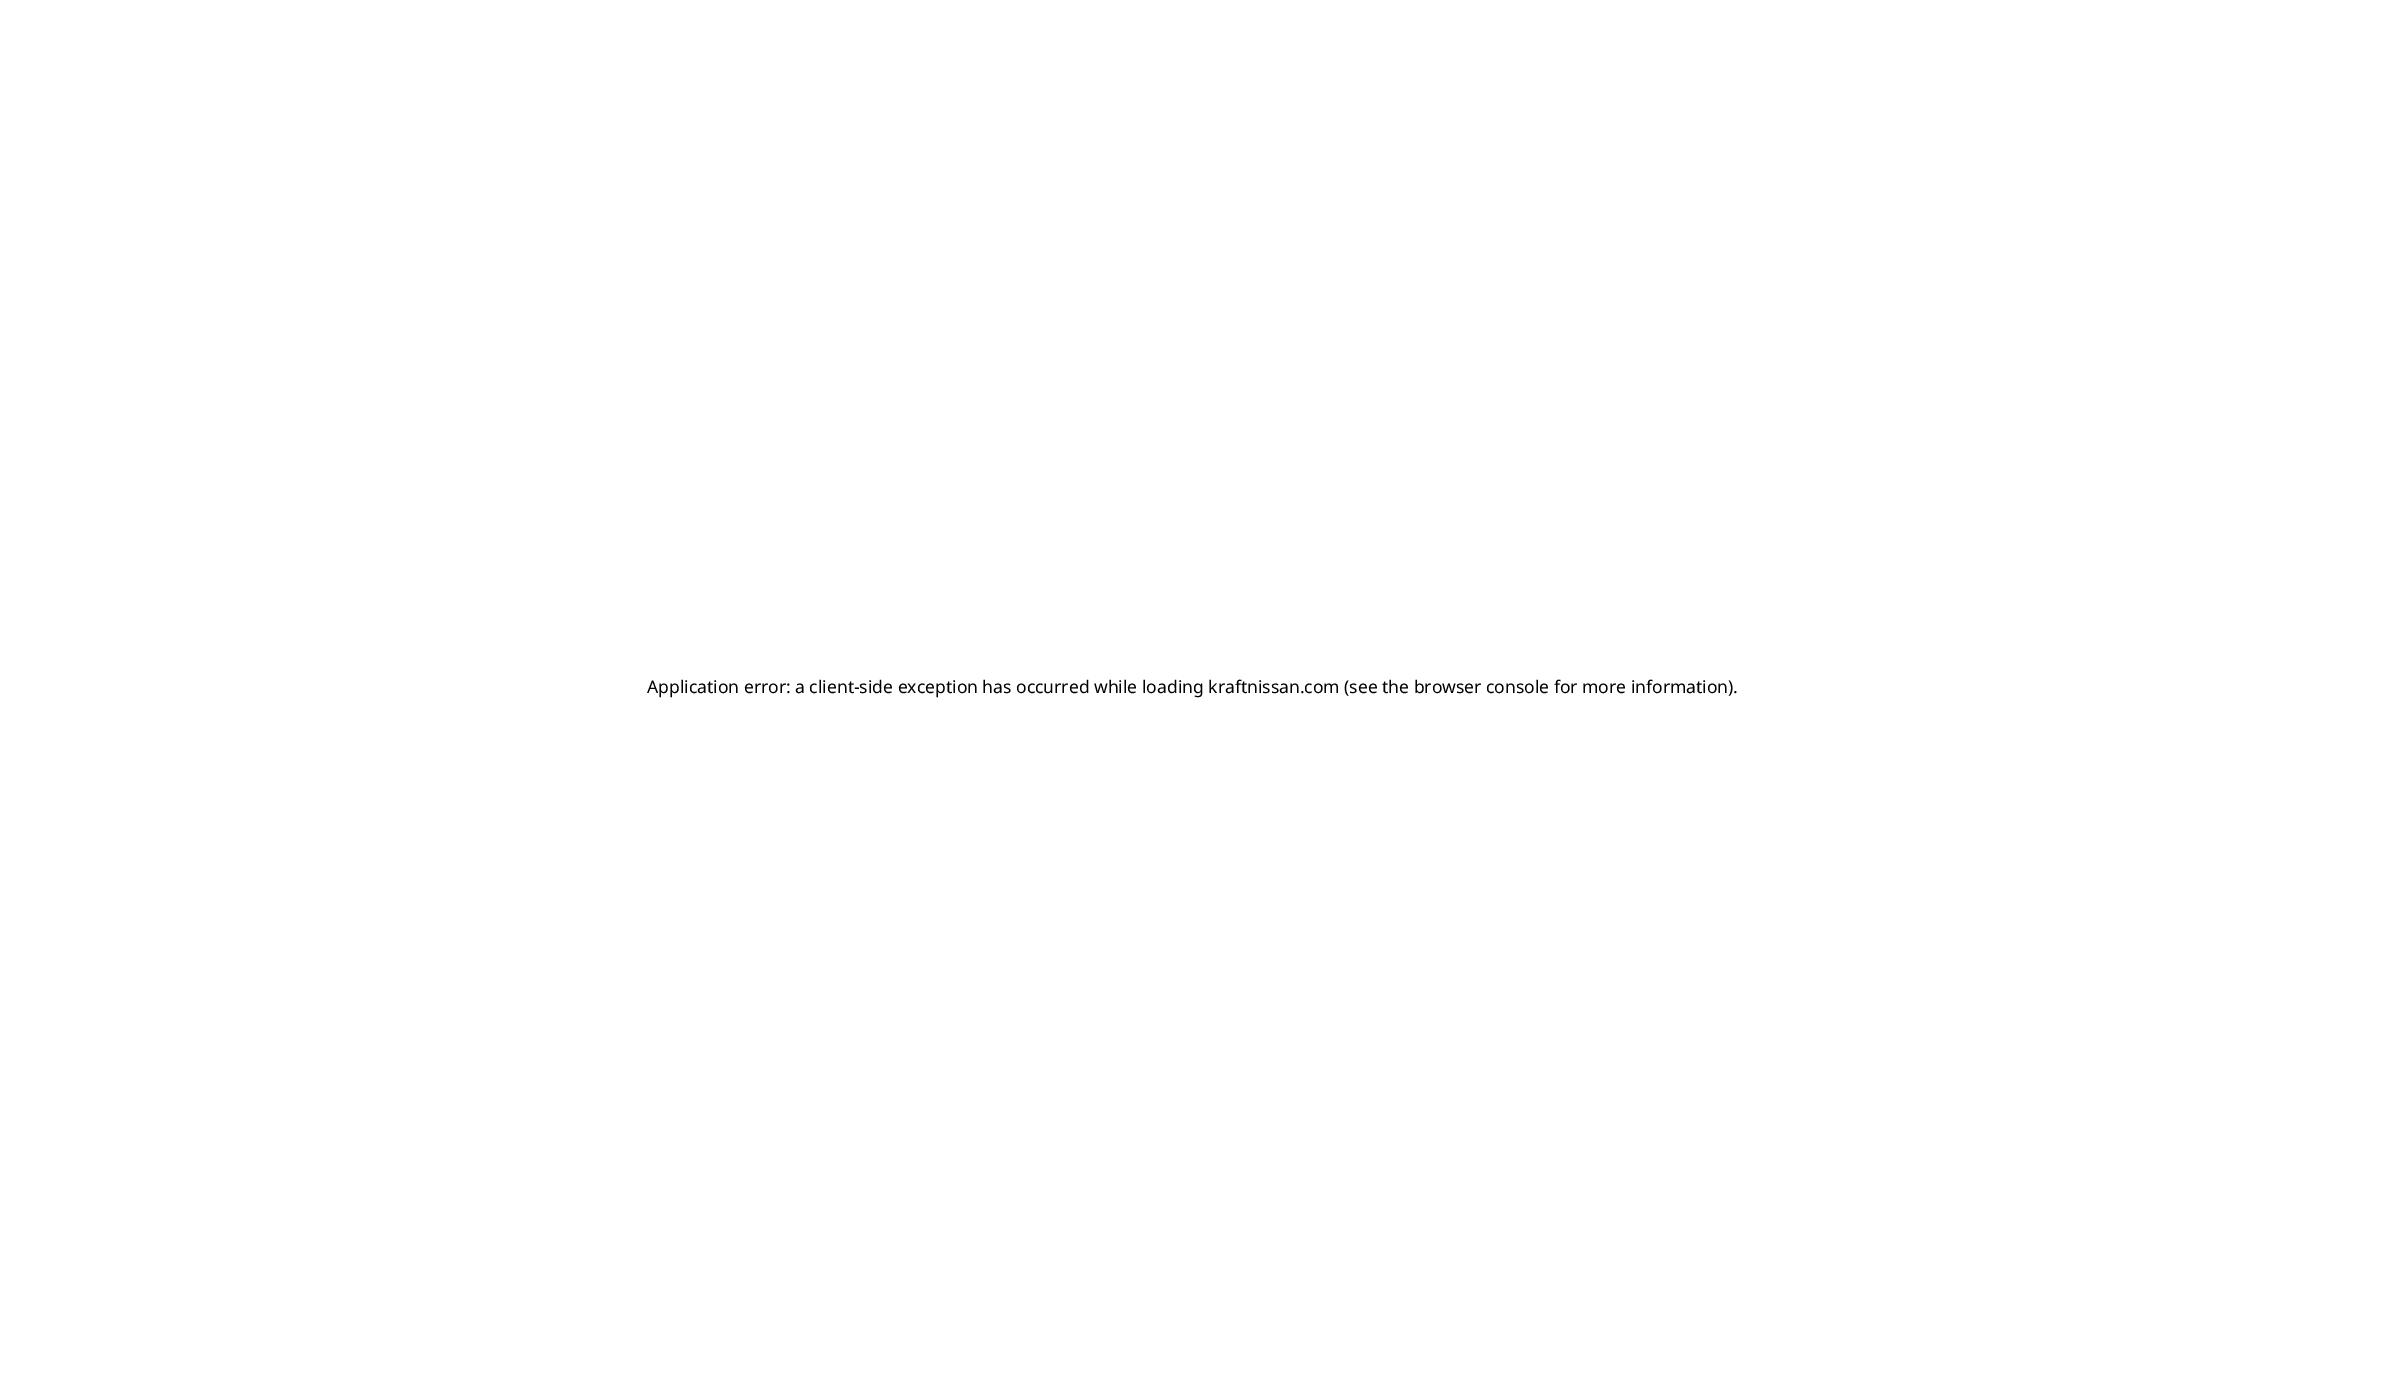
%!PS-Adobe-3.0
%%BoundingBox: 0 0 2385 1373
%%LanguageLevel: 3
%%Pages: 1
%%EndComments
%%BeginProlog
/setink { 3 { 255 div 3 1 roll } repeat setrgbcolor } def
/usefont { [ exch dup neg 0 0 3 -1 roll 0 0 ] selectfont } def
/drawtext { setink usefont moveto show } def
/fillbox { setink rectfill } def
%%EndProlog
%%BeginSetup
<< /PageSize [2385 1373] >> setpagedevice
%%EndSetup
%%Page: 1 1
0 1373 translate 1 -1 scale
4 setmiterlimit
0 0 2385 1373 255 255 255 fillbox
(Application error: a client-side exception has occurred while loading kraftnissan.com \(see the browser console for more information\).) 647 693 /NotoSans-Regular 17.5 0 0 0 drawtext
showpage
%%EOF
